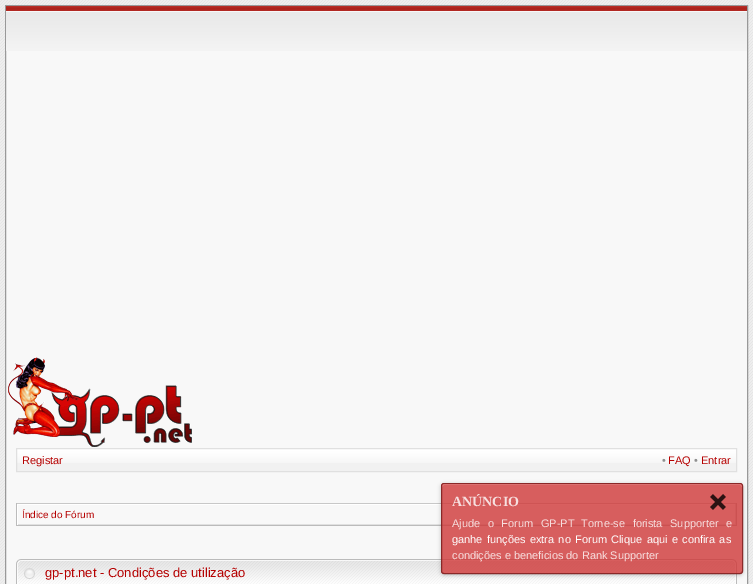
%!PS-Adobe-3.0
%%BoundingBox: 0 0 753 584
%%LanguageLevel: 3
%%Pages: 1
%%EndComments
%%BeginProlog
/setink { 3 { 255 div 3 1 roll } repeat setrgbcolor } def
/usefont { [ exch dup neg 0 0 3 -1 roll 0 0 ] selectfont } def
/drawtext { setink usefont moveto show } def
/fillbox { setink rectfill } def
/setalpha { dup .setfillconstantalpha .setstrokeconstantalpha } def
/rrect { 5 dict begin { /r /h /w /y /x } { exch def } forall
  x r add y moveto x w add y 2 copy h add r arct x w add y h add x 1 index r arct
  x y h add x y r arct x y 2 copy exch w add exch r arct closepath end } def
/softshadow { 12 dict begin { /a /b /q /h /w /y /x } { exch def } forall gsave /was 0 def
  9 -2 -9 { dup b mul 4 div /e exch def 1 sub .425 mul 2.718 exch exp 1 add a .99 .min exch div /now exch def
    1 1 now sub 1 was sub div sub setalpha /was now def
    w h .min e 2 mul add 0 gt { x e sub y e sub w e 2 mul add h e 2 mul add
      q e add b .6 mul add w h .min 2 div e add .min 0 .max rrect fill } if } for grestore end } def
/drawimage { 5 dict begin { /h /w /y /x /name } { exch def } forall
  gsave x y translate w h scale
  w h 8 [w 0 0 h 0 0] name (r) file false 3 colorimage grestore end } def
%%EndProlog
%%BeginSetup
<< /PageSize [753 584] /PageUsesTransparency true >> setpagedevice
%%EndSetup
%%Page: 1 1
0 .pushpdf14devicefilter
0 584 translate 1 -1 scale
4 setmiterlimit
0 0 753 584 255 255 255 fillbox
(assets/img1.rgb) 0 0 753 584 drawimage
6 51 741 533 248 248 248 fillbox
153 153 153 setink
5.5 5.5 742 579 rectstroke
(assets/img2.rgb) 6 6 741 45 drawimage
(assets/img3.rgb) 8 357 184 90 drawimage
17 463 719 8 241 241 241 fillbox
(assets/img4.rgb) 17 449 719 14 drawimage
224 224 224 setink
16.5 448.5 720 23 rectstroke
(Registar) 22 464 /LiberationSans-Regular 11 181 0 0 drawtext
(•) 662 464 /LiberationSans-Regular 11 144 144 144 drawtext
(FAQ) 668 464 /LiberationSans-Regular 11 181 0 0 drawtext
(•) 694 464 /LiberationSans-Regular 11 144 144 144 drawtext
(Entrar) 701 464 /LiberationSans-Regular 11 181 0 0 drawtext
16 503 721 1 200 200 200 fillbox
736 503 1 23 187 187 187 fillbox
16 525 721 1 187 187 187 fillbox
16 503 1 23 187 187 187 fillbox
17 504 719 1 255 255 255 fillbox
735 504 1 21 224 224 224 fillbox
17 524 719 1 224 224 224 fillbox
17 504 1 21 255 255 255 fillbox
(Índice do Fórum) 22 518 /LiberationSans-Regular 10 181 0 0 drawtext
(assets/img5.rgb) 16 559 721 25 drawimage
(assets/img6.rgb) 16 559 19 25 drawimage
(assets/img7.rgb) 732 559 5 25 drawimage
(gp-pt.net - Condições de utilização) 45 577 /LiberationSans-Regular 13 181 0 0 drawtext
gsave
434 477 moveto 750 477 lineto 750 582 lineto 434 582 lineto closepath 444 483 moveto 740 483 lineto 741.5 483 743 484.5 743 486 curveto 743 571 lineto 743 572.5 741.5 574 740 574 curveto 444 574 lineto 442.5 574 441 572.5 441 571 curveto 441 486 lineto 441 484.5 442.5 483 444 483 curveto closepath eoclip newpath
0 0 0 setink
441 484 302 91 3 2 0.24 softshadow
grestore
0.8 setalpha
207 55 55 setink
441 483 302 91 3 rrect fill
1 setalpha
246 136 136 setink
444 485 moveto 740 485 lineto 741 485 742 486 742 487 curveto 742 486 742 484 740 484 curveto 443 484 lineto 442 487 lineto 442 486 443 485 444 485 curveto closepath fill
0.8 setalpha
119 27 27 setink
441.5 483.5 301 90 2.5 rrect stroke
1 setalpha
(ANÚNCIO) 452 506 /LiberationSerif-Bold 14 247 223 223 drawtext
(assets/img8.rgb) 710 494 16 16 drawimage
/LiberationSans-Regular 11 usefont
452 527 moveto 4.5 0 32 (Ajude o Forum GP-PT) widthshow
581 527 moveto 4.5 0 32 (Torne-se forista Supporter e) widthshow
254 254 254 setink
452 543 moveto 1.25 0 32 (ganhe funções extra no Forum Clique aqui e confira as) widthshow
(condições e beneficios do Rank Supporter) 452 559 /LiberationSans-Regular 11 247 223 223 drawtext
.poppdf14devicefilter showpage
%%EOF
